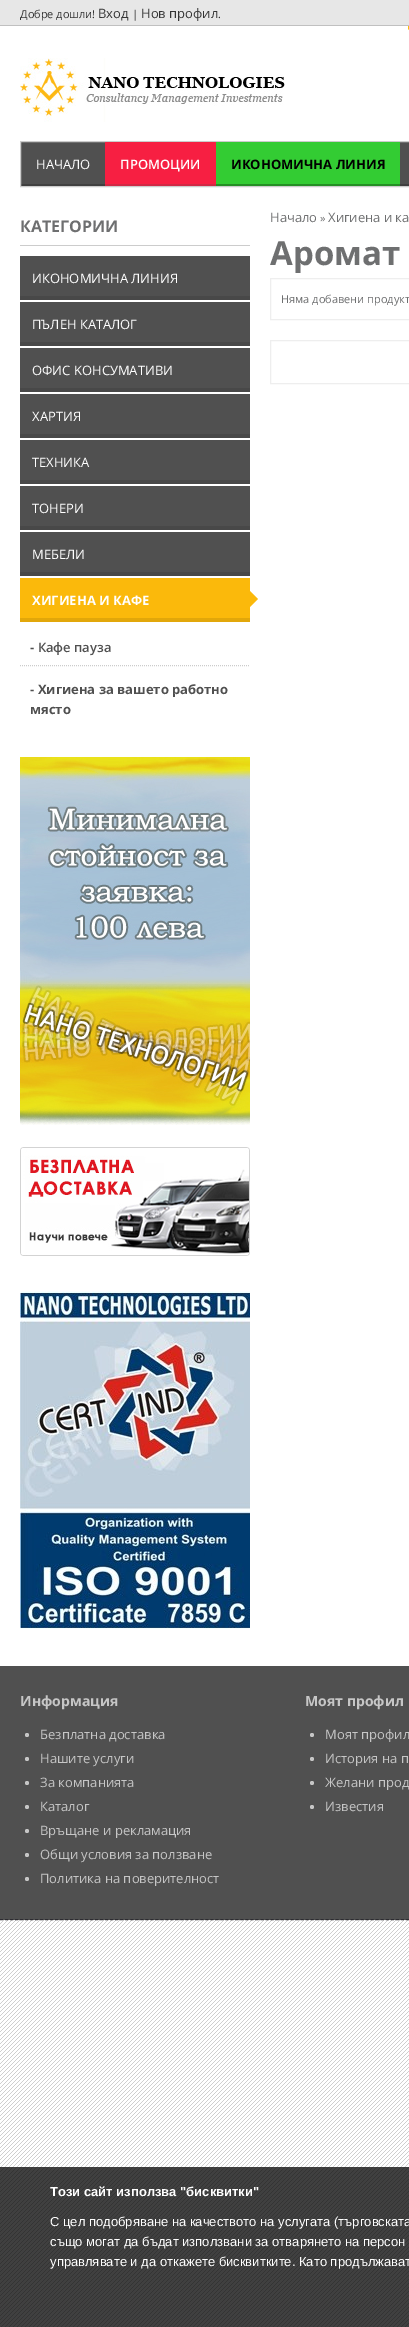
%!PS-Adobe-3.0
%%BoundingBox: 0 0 409 2327
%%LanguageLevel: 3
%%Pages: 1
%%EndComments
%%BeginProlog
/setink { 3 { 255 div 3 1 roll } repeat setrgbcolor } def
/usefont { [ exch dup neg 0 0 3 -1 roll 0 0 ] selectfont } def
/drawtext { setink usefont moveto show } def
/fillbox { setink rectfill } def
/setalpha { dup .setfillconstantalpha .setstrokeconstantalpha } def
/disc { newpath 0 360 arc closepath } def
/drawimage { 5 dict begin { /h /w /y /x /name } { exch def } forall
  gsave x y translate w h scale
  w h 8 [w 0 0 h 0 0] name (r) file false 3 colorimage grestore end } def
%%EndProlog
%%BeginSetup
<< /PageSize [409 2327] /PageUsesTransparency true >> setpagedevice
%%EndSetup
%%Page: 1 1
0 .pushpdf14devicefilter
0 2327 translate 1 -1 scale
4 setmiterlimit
0 0 409 2327 255 255 255 fillbox
(assets/img1.rgb) 0 1920 409 407 drawimage
251 185 11 setink
408 30 moveto 408 12 lineto 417 21 lineto closepath fill
0 0 409 25 231 231 231 fillbox
0 25 409 1 192 192 192 fillbox
(Добре дошли!) 20 18 /OpenSans-Regular 11 52 52 52 drawtext
(Вход) 98 18 /OpenSans-Regular 13 52 52 52 drawtext
(|) 132 18 /OpenSans-Regular 11 52 52 52 drawtext
(Нов профил) 141 18 /OpenSans-Regular 13 52 52 52 drawtext
(.) 218 18 /OpenSans-Regular 11 52 52 52 drawtext
(assets/img2.rgb) 20 58 265 64 drawimage
21 142 388 42 80 80 80 fillbox
21 184 388 2 64 64 64 fillbox
204 204 204 setink
20.5 141.5 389 45 rectstroke
(НАЧАЛО) 36 169 /OpenSans-Regular 13 255 255 255 drawtext
105 142 111 42 247 31 66 fillbox
105 184 111 2 209 40 68 fillbox
(ПРОМОЦИИ) 120 169 /OpenSans-SemiBold 13 255 255 255 drawtext
216 142 184 42 51 204 51 fillbox
216 184 184 2 36 143 36 fillbox
(ИКОНОМИЧНА ЛИНИЯ) 231 169 /OpenSans-Bold 13 0 0 0 drawtext
20 245 230 1 204 204 204 fillbox
(КАТЕГОРИИ) 20 232 /OpenSans-Bold 16 110 111 112 drawtext
20 256 230 40 80 80 80 fillbox
20 296 230 4 72 72 72 fillbox
(ИКОНОМИЧНА ЛИНИЯ) 32 283 /OpenSans-Regular 13 255 255 255 drawtext
20 302 230 40 80 80 80 fillbox
20 342 230 4 72 72 72 fillbox
(ПЪЛЕН КАТАЛОГ) 32 329 /OpenSans-Regular 13 255 255 255 drawtext
20 348 230 40 80 80 80 fillbox
20 388 230 4 72 72 72 fillbox
(ОФИС KОНСУМАТИВИ) 32 375 /OpenSans-Regular 13 255 255 255 drawtext
20 394 230 40 80 80 80 fillbox
20 434 230 4 72 72 72 fillbox
(ХАРТИЯ) 32 421 /OpenSans-Regular 13 255 255 255 drawtext
20 440 230 40 80 80 80 fillbox
20 480 230 4 72 72 72 fillbox
(ТЕХНИКА) 32 467 /OpenSans-Regular 13 255 255 255 drawtext
20 486 230 40 80 80 80 fillbox
20 526 230 4 72 72 72 fillbox
(ТОНЕРИ) 32 513 /OpenSans-Regular 13 255 255 255 drawtext
20 532 230 40 80 80 80 fillbox
20 572 230 4 72 72 72 fillbox
(МЕБЕЛИ) 32 559 /OpenSans-Regular 13 255 255 255 drawtext
20 578 230 40 251 185 11 fillbox
20 618 230 4 226 167 10 fillbox
(ХИГИЕНА И КАФЕ) 32 605 /OpenSans-Bold 13 255 255 255 drawtext
251 185 11 setink
249 608 moveto 249 590 lineto 258 599 lineto closepath fill
(- Кафе пауза) 30 652 /OpenSans-SemiBold 13 80 80 80 drawtext
204 204 204 setink
[1 1] 0 setdash
20 665.5 moveto 250 665.5 lineto stroke
(- Хигиена за вашето работно) 30 694 /OpenSans-Bold 13 80 80 80 drawtext
(място) 30 714 /OpenSans-Bold 13 80 80 80 drawtext
(assets/img3.rgb) 20 757 230 368 drawimage
(assets/img4.rgb) 20 1147 230 109 drawimage
(assets/img5.rgb) 20 1291 230 338 drawimage
(Начало) 270 222 /OpenSans-Regular 13 110 111 112 drawtext
(») 320 222 /OpenSans-Regular 11 110 111 112 drawtext
(Хигиена и ка) 328 222 /OpenSans-Regular 13 110 111 112 drawtext
(Аромат) 270 265 /OpenSans-Bold 33 110 111 112 drawtext
238 238 238 setink
[] 0 setdash
270.5 278.5 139 41 rectstroke
(Няма добавени продукт) 281 303 /OpenSans-Regular 11 110 111 112 drawtext
238 238 238 setink
270.5 340.5 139 43 rectstroke
0 1666 409 254 80 80 80 fillbox
45 44 49 setink
[3 2.01] 0 setdash
0 1919.5 moveto 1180 1919.5 lineto stroke
(Информация) 20 1706 /OpenSans-Bold 14 198 198 198 drawtext
27 1735 2 disc fill
(Безплатна доставка) 40 1739 /OpenSans-Regular 13 198 198 198 drawtext
27 1759 2 disc fill
(Нашите услуги) 40 1763 /OpenSans-Regular 13 198 198 198 drawtext
27 1783 2 disc fill
(За компанията) 40 1787 /OpenSans-Regular 13 198 198 198 drawtext
27 1807 2 disc fill
(Каталог) 40 1811 /OpenSans-Regular 13 198 198 198 drawtext
27 1831 2 disc fill
(Връщане и рекламация) 40 1835 /OpenSans-Regular 13 198 198 198 drawtext
27 1855 2 disc fill
(Общи условия за ползване) 40 1859 /OpenSans-Regular 13 198 198 198 drawtext
27 1879 2 disc fill
(Политика на поверителност) 40 1883 /OpenSans-Regular 13 198 198 198 drawtext
(Моят профил) 305 1706 /OpenSans-Bold 14 198 198 198 drawtext
312 1735 2 disc fill
(Моят профил) 325 1739 /OpenSans-Regular 13 198 198 198 drawtext
312 1759 2 disc fill
(История на п) 325 1763 /OpenSans-Regular 13 198 198 198 drawtext
312 1783 2 disc fill
(Желани прод) 325 1787 /OpenSans-Regular 13 198 198 198 drawtext
312 1807 2 disc fill
(Известия) 325 1811 /OpenSans-Regular 13 198 198 198 drawtext
0.75 setalpha
0 2167 409 160 0 0 0 fillbox
1 setalpha
(Този сайт използва "бисквитки") 50 2196 /LiberationSans-Bold 13 255 255 255 drawtext
(С цел подобряване на качеството на услугата \(търговската) 50 2226 /LiberationSans-Regular 13 255 255 255 drawtext
(също могат да бъдат използвани за отварянето на персон) 50 2246 /LiberationSans-Regular 13 255 255 255 drawtext
(управлявате и да откажете бисквитките. Като продължават) 50 2266 /LiberationSans-Regular 13 255 255 255 drawtext
.poppdf14devicefilter showpage
%%EOF
